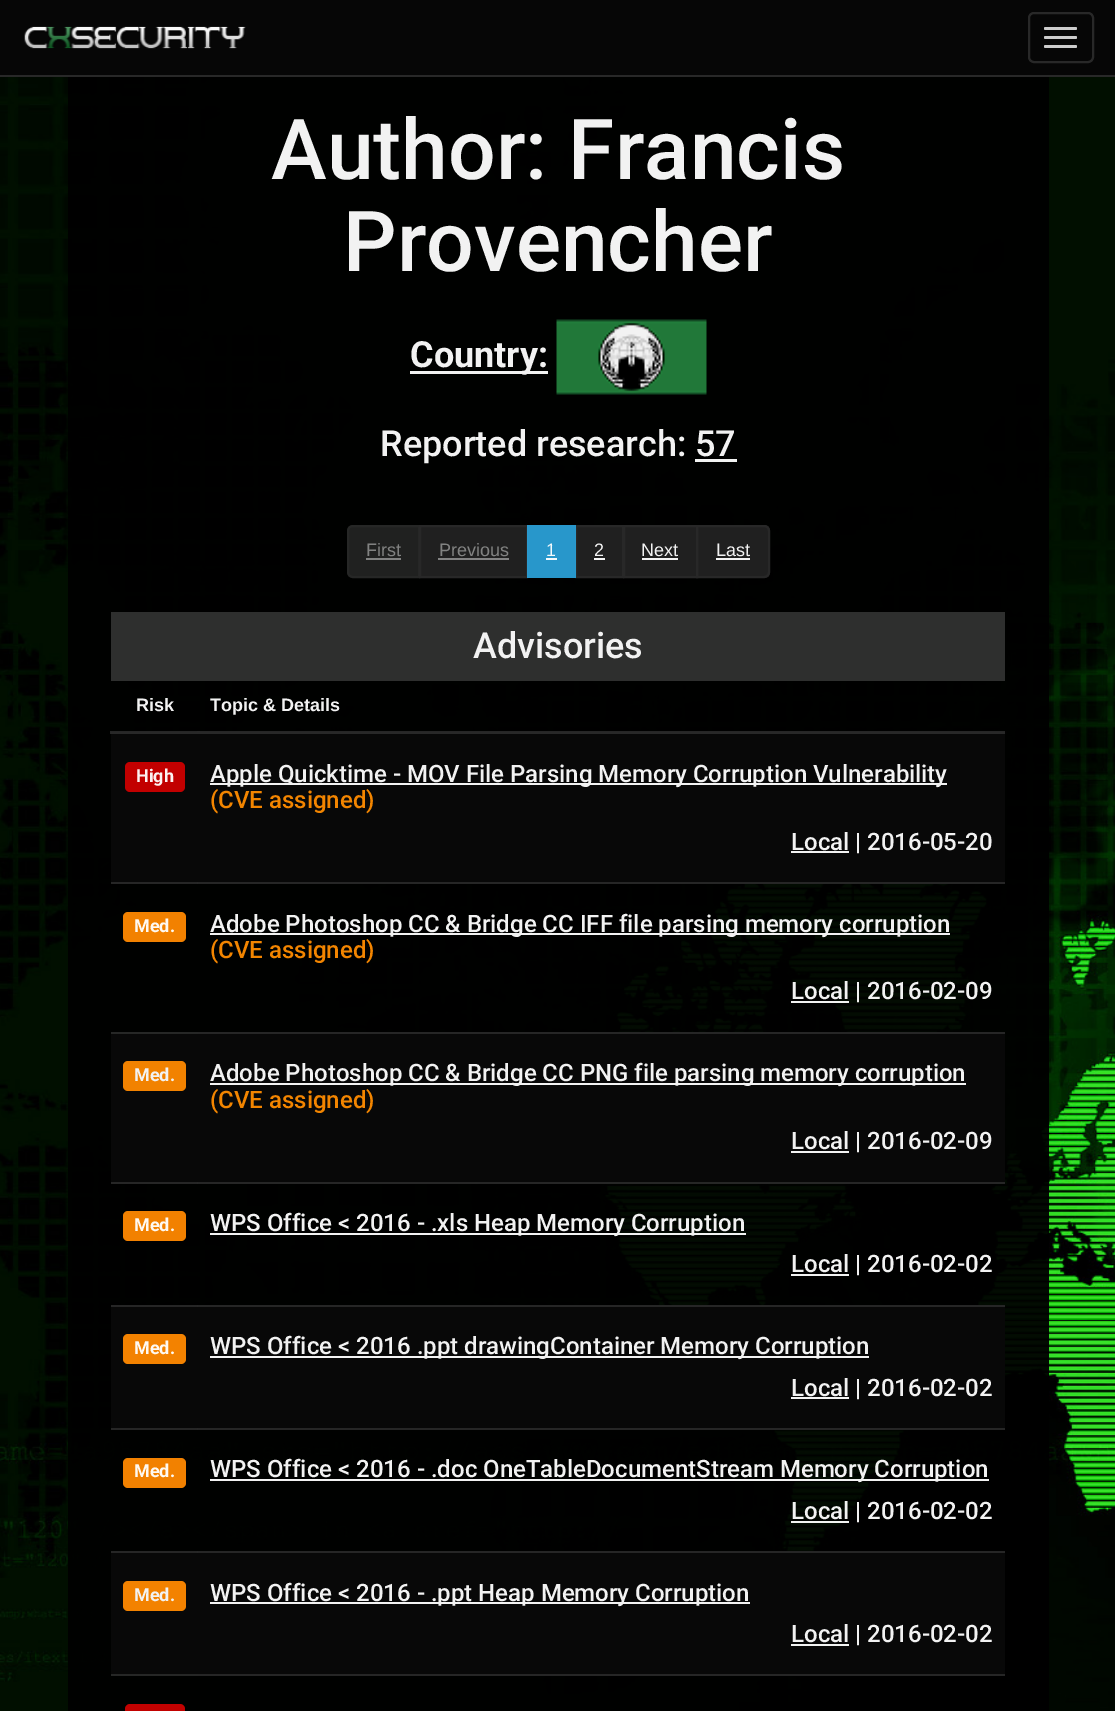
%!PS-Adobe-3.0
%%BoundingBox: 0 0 1115 1711
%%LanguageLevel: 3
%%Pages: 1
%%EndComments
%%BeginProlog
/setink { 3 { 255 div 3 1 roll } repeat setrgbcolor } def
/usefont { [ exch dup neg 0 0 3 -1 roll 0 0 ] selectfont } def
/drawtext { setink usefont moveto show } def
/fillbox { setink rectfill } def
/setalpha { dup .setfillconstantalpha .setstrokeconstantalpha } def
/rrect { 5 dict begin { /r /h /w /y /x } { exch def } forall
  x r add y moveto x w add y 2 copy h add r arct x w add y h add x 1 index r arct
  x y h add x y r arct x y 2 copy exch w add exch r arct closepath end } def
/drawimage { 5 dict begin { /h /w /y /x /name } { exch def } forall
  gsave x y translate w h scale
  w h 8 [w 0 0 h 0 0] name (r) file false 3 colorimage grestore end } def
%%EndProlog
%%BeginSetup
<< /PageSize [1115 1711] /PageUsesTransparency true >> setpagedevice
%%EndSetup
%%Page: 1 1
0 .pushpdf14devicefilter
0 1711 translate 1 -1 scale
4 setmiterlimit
0 0 1115 1711 255 255 255 fillbox
(assets/img1.rgb) 0 77 1115 1634 drawimage
0 0 1115 75 6 6 6 fillbox
0 75 1115 2 40 40 40 fillbox
(assets/img2.rgb) 24 26 222 23 drawimage
2 setlinewidth
1029 13 64 49 5 rrect stroke
204 204 204 setink
1044 27 33 3 1.5 rrect fill
1044 36 33 3 1.5 rrect fill
1044 45 33 3 1.5 rrect fill
0.95 setalpha
68 77 43 1634 0 0 0 fillbox
111 77 894 1634 0 0 0 fillbox
1 setalpha
(Author: Francis) 271 179 /Roboto-Medium 84 242 242 242 drawtext
(Provencher) 343 271 /Roboto-Medium 84 242 242 242 drawtext
410 371 138 3 242 243 242 fillbox
(Country:) 410 367 /Roboto-Bold 36 242 242 242 drawtext
(assets/img3.rgb) 556 319 151 76 drawimage
(Reported research:) 380 456 /Roboto-Medium 36 242 242 242 drawtext
(57) 695 456 /Roboto-Medium 36 242 242 242 drawtext
695 459 42 3 242 243 242 fillbox
32 33 32 setink
353 526 moveto 419 526 lineto 419 577 lineto 353 577 lineto 350 577 348 575 348 572 curveto 348 531 lineto 348 528 350 526 353 526 curveto closepath gsave fill grestore
38 39 38 setink
stroke
(First) 366 556 /LiberationSans-Regular 18 129 130 129 drawtext
366 558 35 2 129 130 129 fillbox
0.95 setalpha
34 34 34 setink
420 526 moveto 527 526 lineto 527 577 lineto 420 577 lineto closepath fill
1 setalpha
40 40 40 setink
420 526 moveto 527 526 lineto 527 577 lineto 420 577 lineto closepath stroke
(Previous) 439 556 /LiberationSans-Regular 18 129 130 129 drawtext
438 558 71 2 131 131 131 fillbox
32 32 32 setink
576 526 moveto 623 526 lineto 623 577 lineto 576 577 lineto closepath gsave fill grestore
40 40 40 setink
stroke
0.95 setalpha
527 525 49 53 42 159 214 fillbox
1 setalpha
(1) 546 556 /LiberationSans-Regular 18 244 250 252 drawtext
546 558 11 2 244 250 252 fillbox
(2) 594 556 /LiberationSans-Regular 18 242 242 242 drawtext
594 558 11 2 244 244 244 fillbox
0.95 setalpha
34 34 34 setink
624 526 moveto 697 526 lineto 697 577 lineto 624 577 lineto closepath fill
1 setalpha
40 40 40 setink
624 526 moveto 697 526 lineto 697 577 lineto 624 577 lineto closepath stroke
(Next) 641 556 /LiberationSans-Regular 18 242 242 242 drawtext
642 558 36 2 244 244 244 fillbox
0.95 setalpha
34 34 34 setink
696 525 moveto 764 525 lineto 767.5 525 770 527.5 770 531 curveto 770 572 lineto 770 575.5 767.5 578 764 578 curveto 696 578 lineto closepath fill
40 40 40 setink
697 526 moveto 764 526 lineto 767 526 769 528 769 531 curveto 769 572 lineto 769 575 767 577 764 577 curveto 697 577 lineto closepath stroke
1 setalpha
(Last) 716 556 /LiberationSans-Regular 18 242 242 242 drawtext
716 558 34 2 244 244 244 fillbox
111 612 894 69 46 47 46 fillbox
(Advisories) 473 658 /Roboto-Medium 36 242 242 242 drawtext
0.95 setalpha
111 732 894 152 8 8 8 fillbox
1 setalpha
197 732 808 2 38 38 38 fillbox
0.95 setalpha
111 732 87 2 40 40 40 fillbox
197 731 810 3 40 40 40 fillbox
110 731 90 3 40 40 40 fillbox
1 setalpha
(Risk) 136 711 /LiberationSans-Bold 18 242 242 242 drawtext
(Topic & Details) 210 711 /LiberationSans-Bold 18 242 242 242 drawtext
194 0 0 setink
125 762 60 30 5 rrect fill
(High) 136 782 /Roboto-Bold 18 252 242 242 drawtext
210 783 737 2 243 243 243 fillbox
(Apple Quicktime - MOV File Parsing Memory Corruption Vulnerability) 210 782 /Roboto-Medium 24 242 242 242 drawtext
(\(CVE assigned\)) 210 808 /Roboto-Medium 24 243 133 0 drawtext
(Local) 791 850 /Roboto-Medium 24 242 242 242 drawtext
791 851 58 2 243 243 243 fillbox
(|) 855 850 /Roboto-Bold 24 242 242 242 drawtext
(2016-05-20) 867 850 /Roboto-Medium 24 242 242 242 drawtext
197 882 808 2 38 38 38 fillbox
0.95 setalpha
111 882 87 2 40 40 40 fillbox
1 setalpha
242 129 0 setink
123 912 63 30 5 rrect fill
(Med.) 134 932 /Roboto-Bold 18 254 249 242 drawtext
0.95 setalpha
210 933 740 2 255 255 255 fillbox
1 setalpha
(Adobe Photoshop CC & Bridge CC IFF file parsing memory corruption) 210 932 /Roboto-Medium 24 242 242 242 drawtext
(\(CVE assigned\)) 210 958 /Roboto-Medium 24 243 133 0 drawtext
(Local) 791 999 /Roboto-Medium 24 242 242 242 drawtext
0.95 setalpha
791 1001 58 2 255 255 255 fillbox
1 setalpha
(|) 855 999 /Roboto-Bold 24 242 242 242 drawtext
(2016-02-09) 867 999 /Roboto-Medium 24 242 242 242 drawtext
0.95 setalpha
111 1034 894 148 8 8 8 fillbox
1 setalpha
197 1032 808 2 38 38 38 fillbox
111 1032 87 2 38 39 38 fillbox
242 130 0 setink
123 1061 63 30 5 rrect fill
(Med.) 134 1081 /Roboto-Bold 18 242 242 242 drawtext
210 1083 756 2 243 243 243 fillbox
(Adobe Photoshop CC & Bridge CC PNG file parsing memory corruption) 210 1081 /Roboto-Medium 24 242 242 242 drawtext
(\(CVE assigned\)) 210 1108 /Roboto-Medium 24 243 133 0 drawtext
(Local) 791 1149 /Roboto-Medium 24 242 242 242 drawtext
791 1151 58 2 243 243 243 fillbox
(|) 855 1149 /Roboto-Bold 24 242 242 242 drawtext
(2016-02-09) 867 1149 /Roboto-Medium 24 242 242 242 drawtext
0.95 setalpha
197 1182 808 2 40 40 40 fillbox
111 1182 87 2 40 40 40 fillbox
1 setalpha
242 129 0 setink
123 1211 63 30 5 rrect fill
(Med.) 134 1231 /Roboto-Bold 18 254 249 242 drawtext
0.95 setalpha
210 1233 536 2 255 255 255 fillbox
1 setalpha
(WPS Office < 2016 - .xls Heap Memory Corruption) 210 1231 /Roboto-Medium 24 242 242 242 drawtext
(Local) 791 1272 /Roboto-Medium 24 242 242 242 drawtext
791 1274 58 2 242 242 242 fillbox
(|) 855 1272 /Roboto-Bold 24 242 242 242 drawtext
(2016-02-02) 867 1272 /Roboto-Medium 24 242 242 242 drawtext
0.95 setalpha
111 1305 894 123 8 8 8 fillbox
1 setalpha
197 1305 808 2 38 38 38 fillbox
0.95 setalpha
111 1305 87 2 40 40 40 fillbox
1 setalpha
243 130 0 setink
123 1334 63 30 5 rrect fill
(Med.) 134 1354 /Roboto-Bold 18 254 249 242 drawtext
210 1356 659 2 243 243 243 fillbox
(WPS Office < 2016 .ppt drawingContainer Memory Corruption) 210 1354 /Roboto-Medium 24 242 242 242 drawtext
(Local) 791 1396 /Roboto-Medium 24 242 242 242 drawtext
791 1397 58 2 243 243 243 fillbox
(|) 855 1396 /Roboto-Bold 24 242 242 242 drawtext
(2016-02-02) 867 1396 /Roboto-Medium 24 242 242 242 drawtext
0.95 setalpha
197 1428 808 2 40 40 40 fillbox
111 1428 87 2 40 40 40 fillbox
1 setalpha
242 129 0 setink
123 1458 63 30 5 rrect fill
(Med.) 134 1477 /Roboto-Bold 18 254 249 242 drawtext
0.95 setalpha
210 1479 779 2 255 255 255 fillbox
1 setalpha
(WPS Office < 2016 - .doc OneTableDocumentStream Memory Corruption) 210 1477 /Roboto-Medium 24 242 242 242 drawtext
(Local) 791 1519 /Roboto-Medium 24 242 242 242 drawtext
0.95 setalpha
791 1521 58 2 255 255 255 fillbox
1 setalpha
(|) 855 1519 /Roboto-Bold 24 242 242 242 drawtext
(2016-02-02) 867 1519 /Roboto-Medium 24 242 242 242 drawtext
0.95 setalpha
111 1553 894 121 8 8 8 fillbox
197 1551 808 2 40 40 40 fillbox
111 1551 87 2 40 40 40 fillbox
1 setalpha
243 130 0 setink
123 1581 63 30 5 rrect fill
(Med.) 134 1601 /Roboto-Bold 18 242 242 242 drawtext
210 1602 540 2 243 243 243 fillbox
(WPS Office < 2016 - .ppt Heap Memory Corruption) 210 1601 /Roboto-Medium 24 242 242 242 drawtext
(Local) 791 1642 /Roboto-Medium 24 242 242 242 drawtext
791 1644 58 2 242 243 242 fillbox
(|) 855 1642 /Roboto-Bold 24 242 242 242 drawtext
(2016-02-02) 867 1642 /Roboto-Medium 24 242 242 242 drawtext
197 1674 808 2 38 38 38 fillbox
111 1674 87 2 38 39 38 fillbox
194 1 0 setink
125 1704 60 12 5 rrect fill
0.95 setalpha
1005 77 44 1634 0 0 0 fillbox
.poppdf14devicefilter showpage
%%EOF
